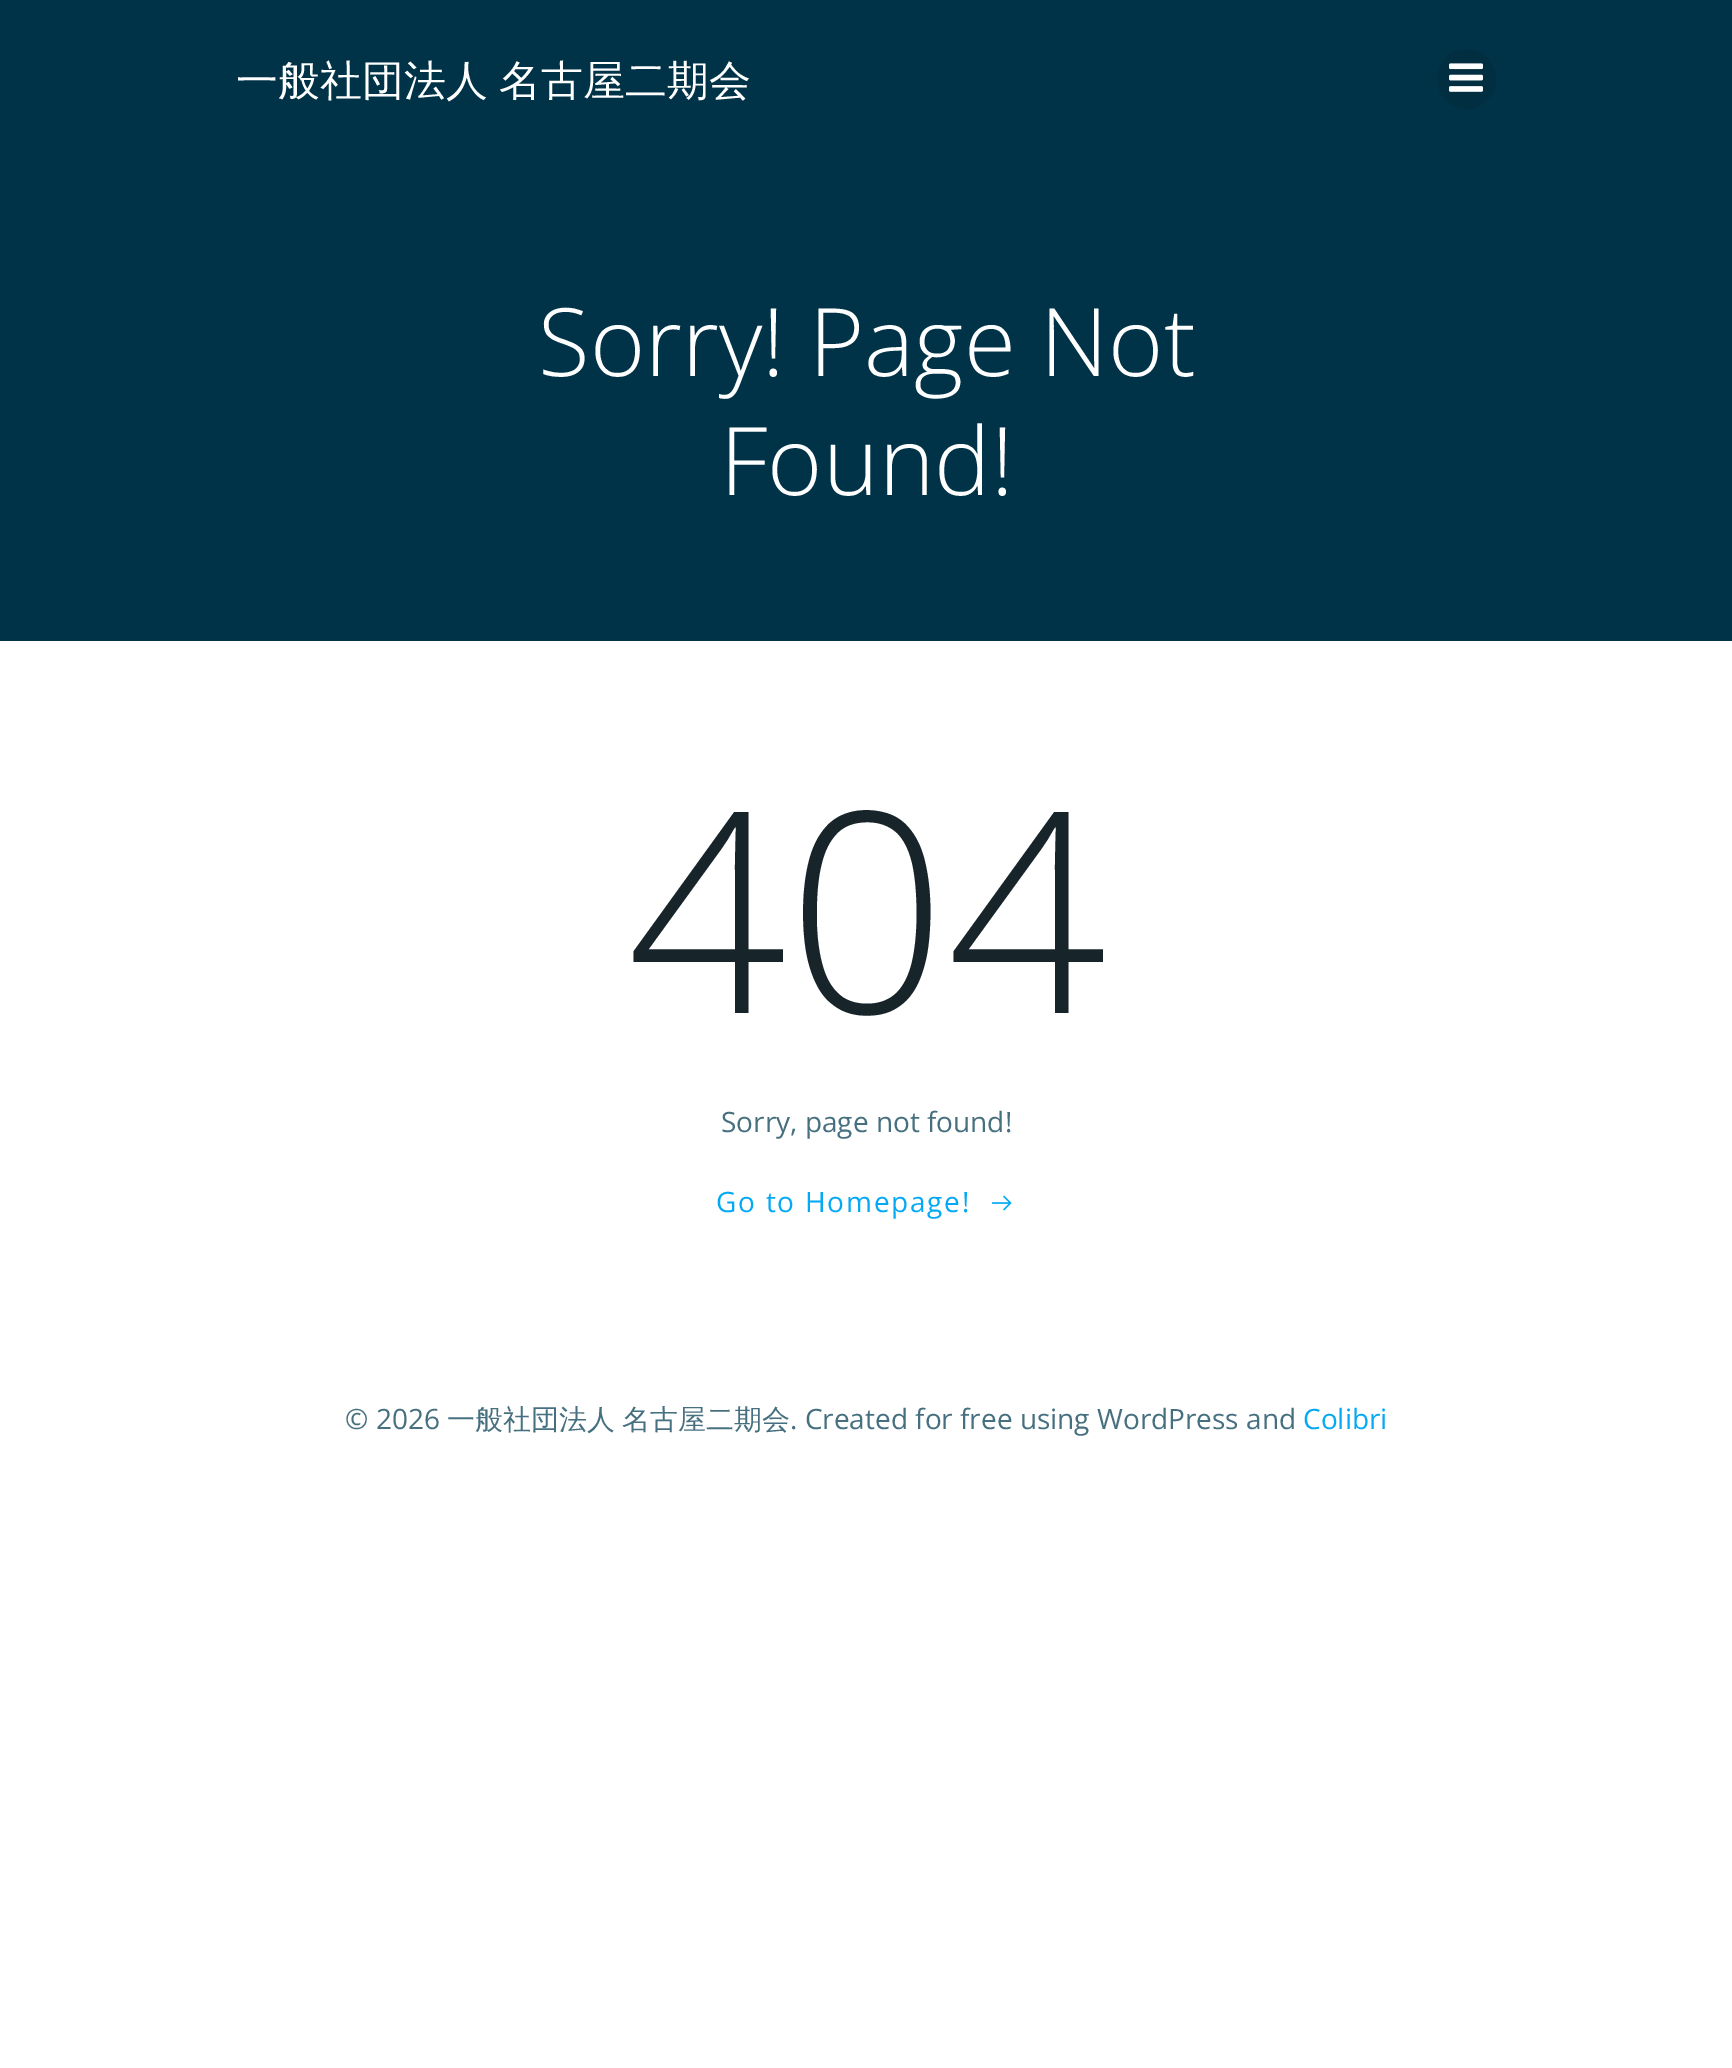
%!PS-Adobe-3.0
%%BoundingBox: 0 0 1732 2068
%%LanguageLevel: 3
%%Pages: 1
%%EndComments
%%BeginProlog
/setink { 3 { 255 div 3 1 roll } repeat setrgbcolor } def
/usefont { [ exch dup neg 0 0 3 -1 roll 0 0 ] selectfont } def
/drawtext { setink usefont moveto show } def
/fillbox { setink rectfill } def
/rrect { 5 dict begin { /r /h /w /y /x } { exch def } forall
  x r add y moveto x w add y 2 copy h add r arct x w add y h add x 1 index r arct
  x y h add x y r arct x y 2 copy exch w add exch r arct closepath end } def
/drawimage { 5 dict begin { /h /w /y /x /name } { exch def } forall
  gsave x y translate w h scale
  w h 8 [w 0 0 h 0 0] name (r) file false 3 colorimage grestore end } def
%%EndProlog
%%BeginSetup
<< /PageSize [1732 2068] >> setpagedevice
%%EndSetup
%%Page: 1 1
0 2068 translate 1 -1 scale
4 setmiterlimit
0 0 1732 2068 255 255 255 fillbox
0 0 1732 641 1 51 72 fillbox
/WenQuanYiZenHei-Medium 42 usefont
255 255 255 setink
236 95 moveto -2 0 32 (一般社団法人 名古屋二期会) widthshow
1 46 65 setink
1437 49 59 60 29.5 rrect fill
(assets/img1.rgb) 1449 63 34 29 drawimage
(Sorry! Page Not) 538 376 /OpenSans-Light 94.5 255 255 255 drawtext
(Found!) 720 495 /OpenSans-Light 94.5 255 255 255 drawtext
(404) 627 1013 /OpenSans-Light 280 23 37 42 drawtext
(Sorry, page not found!) 721 1132 /OpenSans-Regular 28 70 112 127 drawtext
3 169 244 setink
716 1212 moveto 1.75 0 (Go to Homepage!) ashow
(assets/img2.rgb) 992 1195 20 16 drawimage
(© 2026) 345 1429 /OpenSans-Regular 28 70 112 127 drawtext
(一般社団法人) 447 1429 /WenQuanYiZenHei-Medium 28 70 112 127 drawtext
(名古屋二期会) 622 1429 /WenQuanYiZenHei-Medium 28 70 112 127 drawtext
(. Created for free using WordPress and) 790 1429 /OpenSans-Regular 28 70 112 127 drawtext
(Colibri) 1303 1429 /OpenSans-Regular 28 3 169 244 drawtext
showpage
%%EOF
